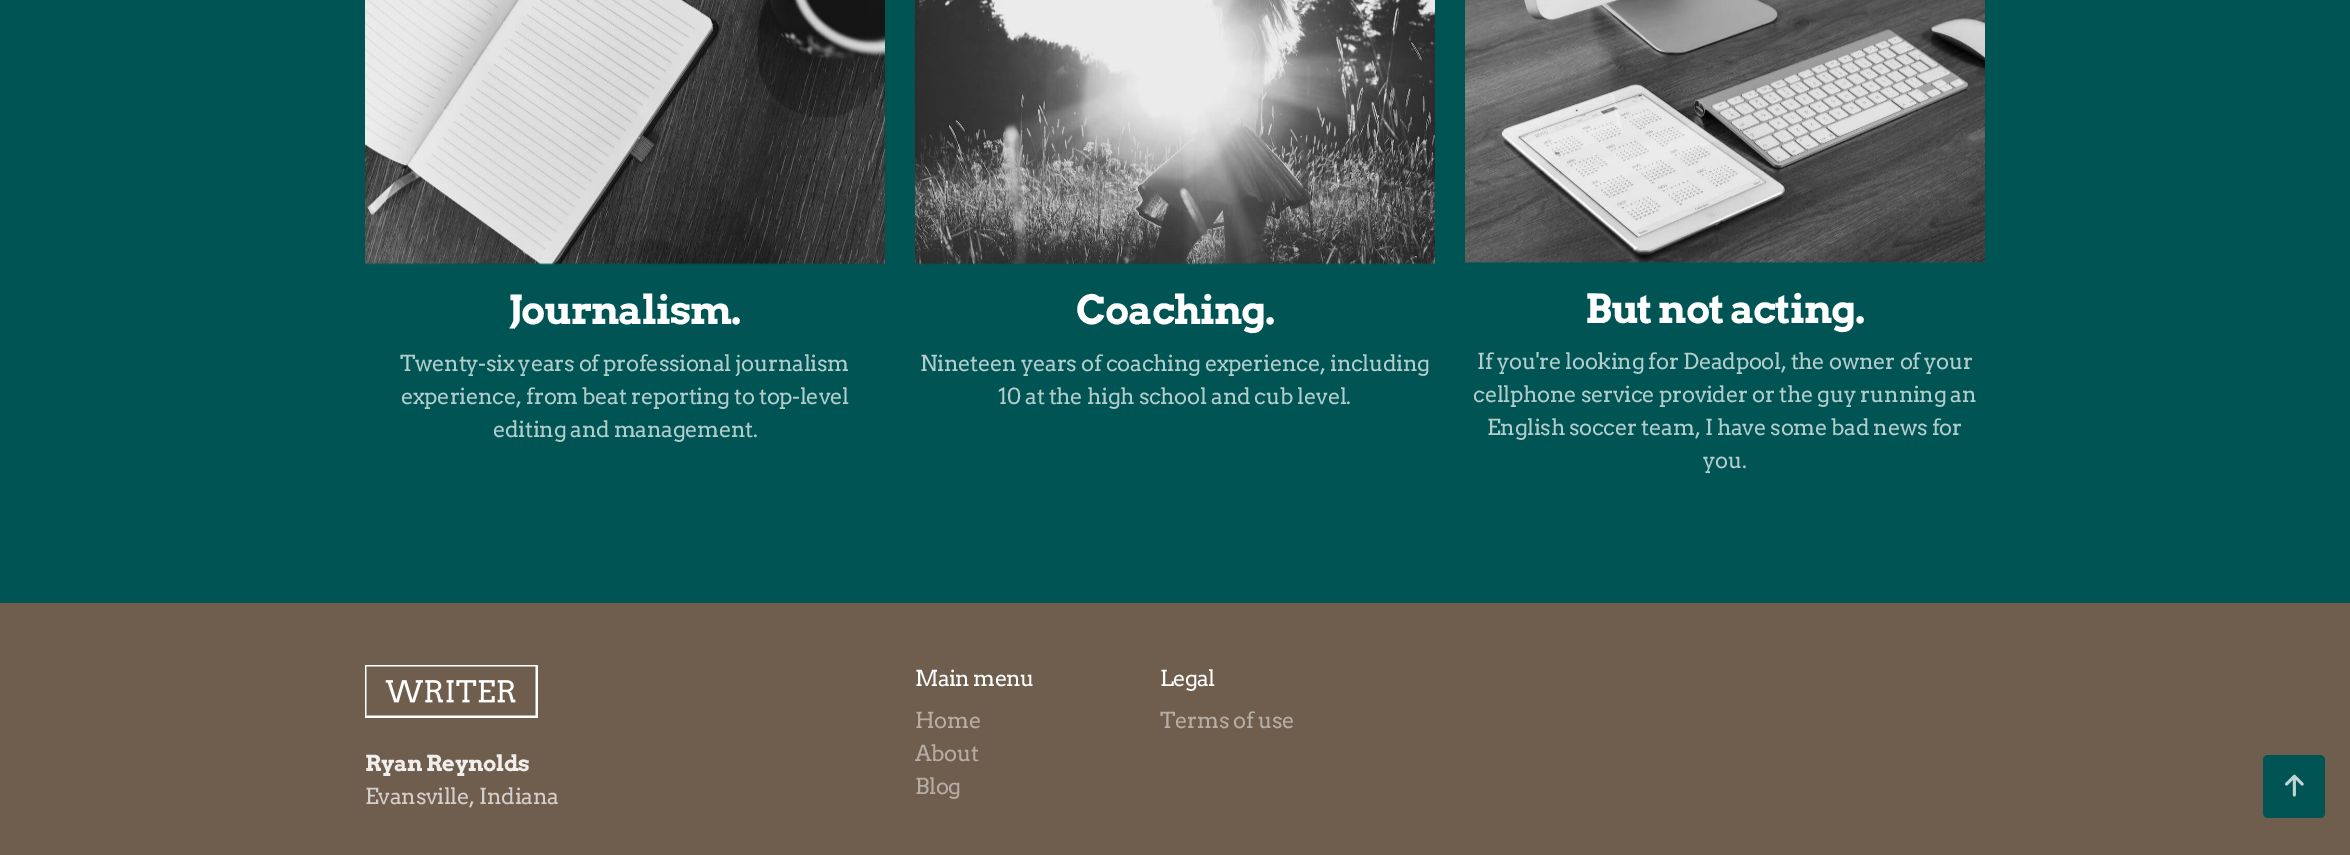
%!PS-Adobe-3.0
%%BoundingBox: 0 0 2350 855
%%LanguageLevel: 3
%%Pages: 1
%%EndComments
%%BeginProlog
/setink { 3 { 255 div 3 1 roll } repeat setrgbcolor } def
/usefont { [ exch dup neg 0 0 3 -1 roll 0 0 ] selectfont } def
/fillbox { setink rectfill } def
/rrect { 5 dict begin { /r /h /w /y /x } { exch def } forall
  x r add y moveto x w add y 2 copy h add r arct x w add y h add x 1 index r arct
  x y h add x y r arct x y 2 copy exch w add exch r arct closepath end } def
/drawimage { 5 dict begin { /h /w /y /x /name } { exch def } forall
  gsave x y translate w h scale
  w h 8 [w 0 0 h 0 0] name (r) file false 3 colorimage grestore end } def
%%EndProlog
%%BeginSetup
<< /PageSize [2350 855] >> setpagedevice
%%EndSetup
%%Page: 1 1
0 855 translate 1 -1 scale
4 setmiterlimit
0 0 2350 855 0 85 84 fillbox
(assets/img1.rgb) 365 0 520 265 drawimage
/Arvo-Bold 40 usefont
255 255 255 setink
509 324 moveto -1.25 0 (Journalism.) ashow
/Arvo-Regular 22 usefont
179 204 204 setink
400 371 moveto -0.45 0 (Twenty-six years of professional journalism) ashow
401 404 moveto -0.45 0 (experience, from beat reporting to top-level) ashow
493 437 moveto -0.45 0 (editing and management.) ashow
(assets/img2.rgb) 915 0 520 265 drawimage
/Arvo-Bold 40 usefont
255 255 255 setink
1076 324 moveto -1.25 0 (Coaching.) ashow
/Arvo-Regular 22 usefont
179 204 204 setink
920 371 moveto -0.45 0 (Nineteen years of coaching experience, including) ashow
998 404 moveto -0.45 0 (10 at the high school and cub level.) ashow
(assets/img3.rgb) 1465 0 520 263 drawimage
/Arvo-Bold 40 usefont
255 255 255 setink
1585 323 moveto -1.25 0 (But not acting.) ashow
/Arvo-Regular 22 usefont
179 204 204 setink
1477 369 moveto -0.45 0 (If you're looking for Deadpool, the owner of your) ashow
1473 402 moveto -0.45 0 (cellphone service provider or the guy running an) ashow
1487 435 moveto -0.45 0 (English soccer team, I have some bad news for) ashow
1703 468 moveto -0.45 0 (you.) ashow
0 603 2350 252 111 94 78 fillbox
(assets/img4.rgb) 365 665 173 53 drawimage
/Arvo-Bold 22 usefont
241 239 237 setink
365 771 moveto -0.45 0 (Ryan Reynolds) ashow
/Arvo-Regular 22 usefont
212 207 202 setink
365 804 moveto -0.45 0 (Evansville, Indiana) ashow
255 255 255 setink
915 686 moveto -0.75 0 (Main menu) ashow
182 173 165 setink
915 728 moveto -0.45 0 (Home) ashow
915 761 moveto -0.45 0 (About) ashow
915 794 moveto -0.45 0 (Blog) ashow
255 255 255 setink
1160 686 moveto -0.75 0 (Legal) ashow
182 173 165 setink
1160 728 moveto -0.45 0 (Terms of use) ashow
0 85 84 setink
2263 755 62 63 5 rrect fill
(assets/img5.rgb) 2285 774 19 23 drawimage
showpage
%%EOF
